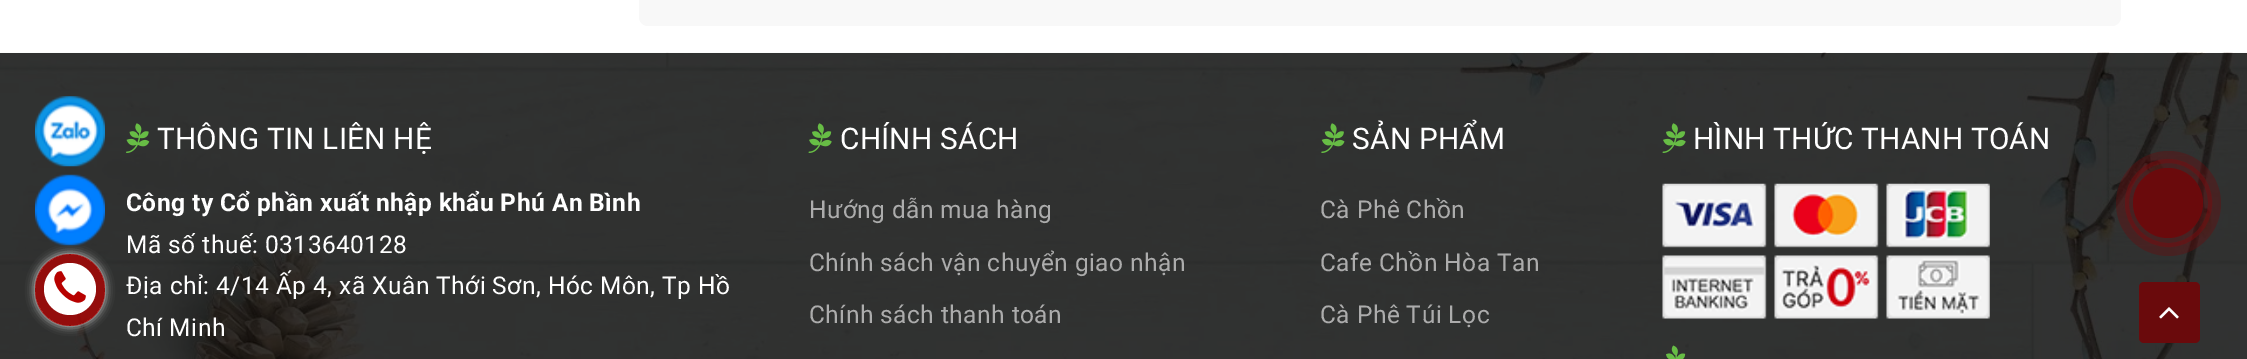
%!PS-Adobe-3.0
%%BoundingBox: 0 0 2247 359
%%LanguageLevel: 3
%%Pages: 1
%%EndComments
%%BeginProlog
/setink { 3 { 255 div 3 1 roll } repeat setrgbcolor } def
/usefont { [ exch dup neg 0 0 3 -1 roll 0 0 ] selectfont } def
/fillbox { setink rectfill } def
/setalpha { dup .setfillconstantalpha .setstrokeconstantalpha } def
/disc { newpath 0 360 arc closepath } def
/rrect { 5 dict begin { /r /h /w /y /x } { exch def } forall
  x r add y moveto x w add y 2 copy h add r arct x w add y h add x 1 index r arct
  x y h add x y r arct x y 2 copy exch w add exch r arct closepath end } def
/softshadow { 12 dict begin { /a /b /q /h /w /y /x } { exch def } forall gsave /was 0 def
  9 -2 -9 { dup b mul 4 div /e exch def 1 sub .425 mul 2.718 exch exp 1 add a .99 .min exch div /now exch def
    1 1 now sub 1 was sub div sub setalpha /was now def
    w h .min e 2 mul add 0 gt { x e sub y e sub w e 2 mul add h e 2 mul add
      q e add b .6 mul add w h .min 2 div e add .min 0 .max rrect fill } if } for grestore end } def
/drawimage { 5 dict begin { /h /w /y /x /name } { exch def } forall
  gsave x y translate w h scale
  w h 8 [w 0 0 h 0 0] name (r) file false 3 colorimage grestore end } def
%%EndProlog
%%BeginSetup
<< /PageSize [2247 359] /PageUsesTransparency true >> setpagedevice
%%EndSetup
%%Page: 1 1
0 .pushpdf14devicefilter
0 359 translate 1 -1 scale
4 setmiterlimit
0 0 2247 359 255 255 255 fillbox
248 248 248 setink
639 -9 1482 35 9 rrect fill
(assets/img4.rgb) 0 52 2247 307 drawimage
(assets/img1.rgb) 35 96 70 71 drawimage
gsave
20 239 moveto 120 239 lineto 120 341 lineto 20 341 lineto closepath 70 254 moveto 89.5 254 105 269.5 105 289 curveto 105 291 lineto 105 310.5 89.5 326 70 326 curveto 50.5 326 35 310.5 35 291 curveto 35 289 lineto 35 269.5 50.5 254 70 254 curveto closepath eoclip newpath
221 221 221 setink
35 254 70 72 35 4.5 1 softshadow
grestore
(assets/img2.rgb) 35 174 70 72 drawimage
0.74 setalpha
183 1 0 setink
35 254 70 72 35 rrect fill
1 setalpha
255 255 255 setink
70 289 26 disc fill
(assets/img3.rgb) 54 271 32 32 drawimage
(assets/img5.rgb) 126 123 24 30 drawimage
/Roboto-Regular 29.75 usefont
157 149 moveto 0.25 0 (THÔNG TIN LIÊN HỆ) ashow
/Roboto-Bold 24.5 usefont
126 211 moveto 0.45 0 (Công ty Cổ phần xuất nhập khẩu Phú An Bình) ashow
/Roboto-Regular 24.5 usefont
126 253 moveto 0.45 0 (Mã số thuế: 0313640128) ashow
126 294 moveto 0.45 0 (Địa chỉ: 4/14 Ấp 4, xã Xuân Thới Sơn, Hóc Môn, Tp Hồ) ashow
126 336 moveto 0.45 0 (Chí Minh) ashow
(assets/img6.rgb) 808 123 24 30 drawimage
/Roboto-Regular 29.75 usefont
840 149 moveto 0.25 0 (CHÍNH SÁCH) ashow
/Roboto-Regular 24.5 usefont
172 172 172 setink
809 218 moveto 0.45 0 (Hướng dẫn mua hàng) ashow
809 271 moveto 0.45 0 (Chính sách vận chuyển giao nhận) ashow
809 323 moveto 0.45 0 (Chính sách thanh toán) ashow
(assets/img7.rgb) 1321 123 24 30 drawimage
/Roboto-Regular 29.75 usefont
255 255 255 setink
1352 149 moveto 0.25 0 (SẢN PHẨM) ashow
/Roboto-Regular 24.5 usefont
172 172 172 setink
1320 218 moveto 0.45 0 (Cà Phê Chồn) ashow
1320 271 moveto 0.45 0 (Cafe Chồn Hòa Tan) ashow
1320 323 moveto 0.45 0 (Cà Phê Túi Lọc) ashow
(assets/img8.rgb) 1662 123 24 30 drawimage
/Roboto-Regular 29.75 usefont
255 255 255 setink
1693 149 moveto 0.25 0 (HÌNH THỨC THANH TOÁN) ashow
(assets/img9.rgb) 1662 183 328 136 drawimage
(assets/img10.rgb) 1666 345 20 14 drawimage
106 10 12 setink
2139 282 61 61 5 rrect fill
(assets/img11.rgb) 2159 307 20 12 drawimage
0.5 setalpha
129 12 15 setink
4 setlinewidth
2127 161 83 84 41.5 rrect stroke
0.38 setalpha
106 10 12 setink
2168.5 203.5 52.5 disc fill
1 setalpha
2168 203 35 disc fill
.poppdf14devicefilter showpage
%%EOF
